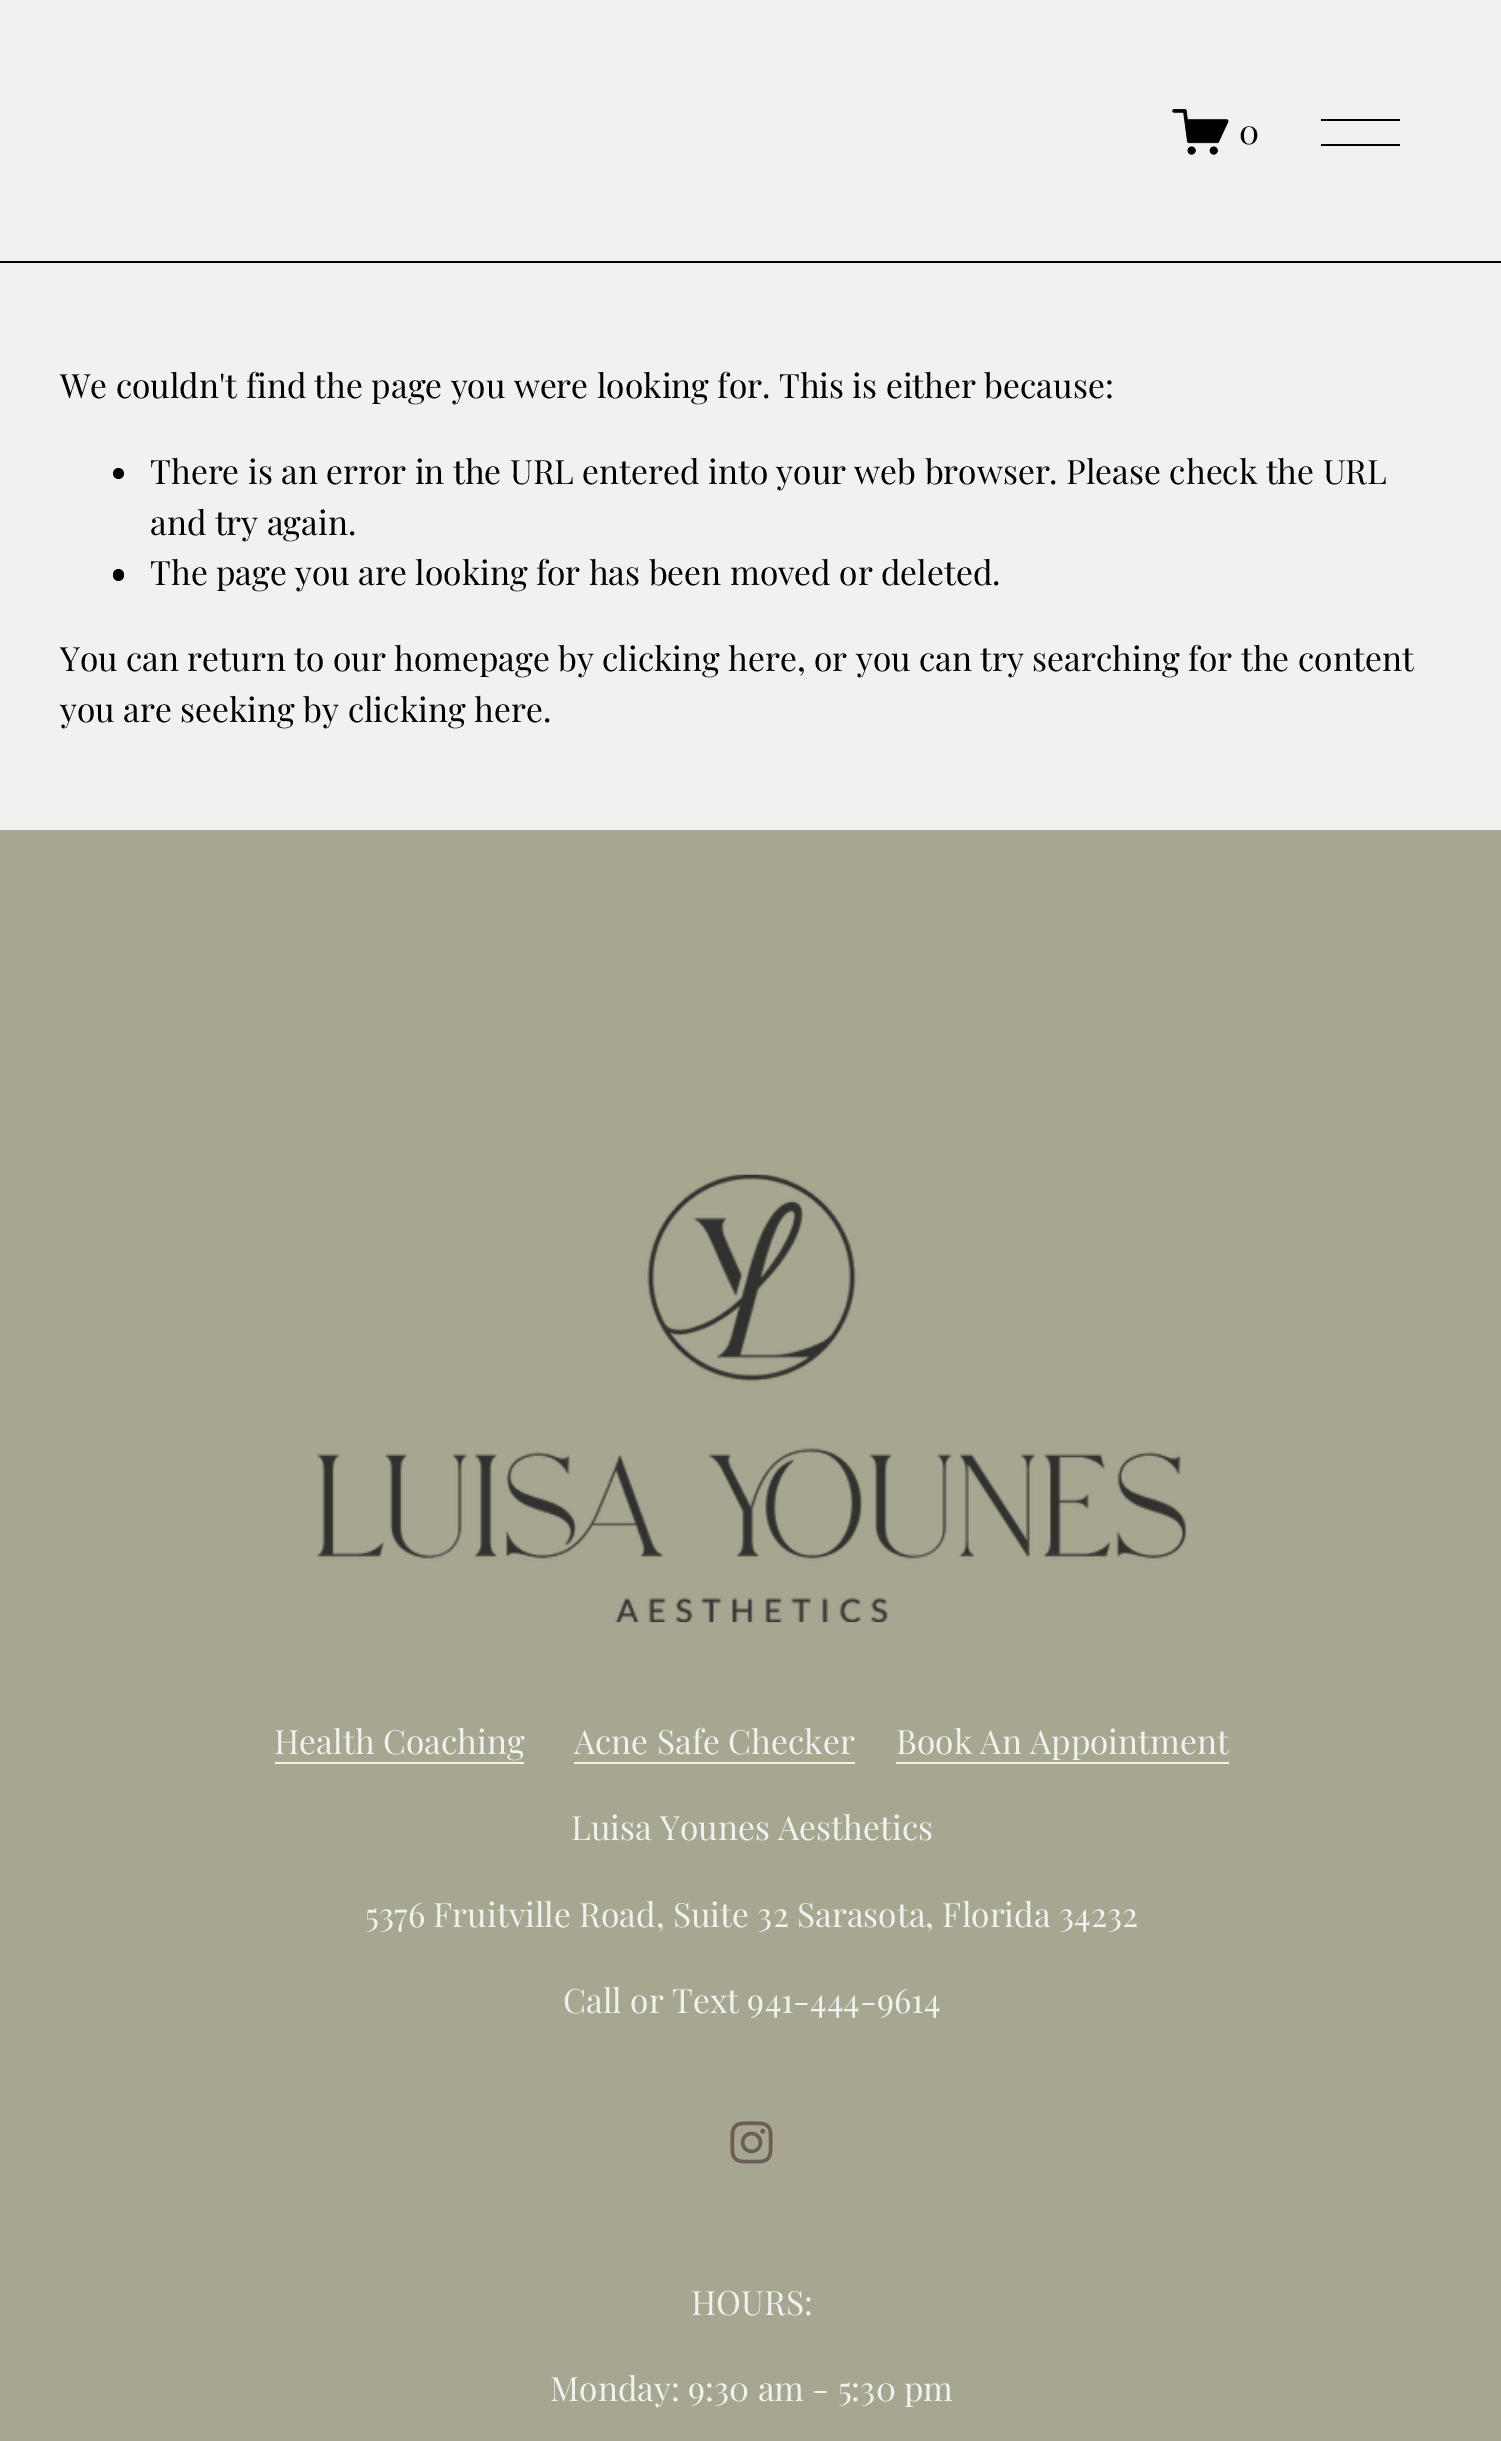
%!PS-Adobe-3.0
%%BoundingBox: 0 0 1501 2441
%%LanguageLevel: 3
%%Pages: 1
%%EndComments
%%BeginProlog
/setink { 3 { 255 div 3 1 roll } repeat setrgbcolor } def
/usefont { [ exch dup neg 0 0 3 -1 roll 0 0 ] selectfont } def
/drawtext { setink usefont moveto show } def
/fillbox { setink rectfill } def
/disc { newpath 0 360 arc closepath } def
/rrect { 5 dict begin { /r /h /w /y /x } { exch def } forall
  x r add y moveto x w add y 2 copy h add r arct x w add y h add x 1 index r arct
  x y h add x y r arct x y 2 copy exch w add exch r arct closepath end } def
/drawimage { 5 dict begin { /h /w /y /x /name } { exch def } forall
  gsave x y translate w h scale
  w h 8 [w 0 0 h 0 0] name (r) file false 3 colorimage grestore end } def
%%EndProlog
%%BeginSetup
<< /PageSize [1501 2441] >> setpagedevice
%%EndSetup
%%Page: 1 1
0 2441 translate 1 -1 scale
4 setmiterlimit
0 0 1501 2441 241 241 239 fillbox
(assets/img1.rgb) 1172 109 57 46 drawimage
(0) 1239 144 /PlayfairDisplay-Regular 33.55 0 0 0 drawtext
1321 119 79 2 0 0 0 fillbox
1321 144 79 2 0 0 0 fillbox
0 261 1501 2 0 0 0 fillbox
(We couldn't find the page you were looking for. This is either because:) 60 398 /PlayfairDisplay-Regular 33.55 0 0 0 drawtext
118.5 473.5 5.5 disc fill
(There is an error in the URL entered into your web browser. Please check the URL) 150 484 /PlayfairDisplay-Regular 33.55 0 0 0 drawtext
(and try again.) 150 535 /PlayfairDisplay-Regular 33.55 0 0 0 drawtext
113 569 11 12 5.5 rrect fill
(The page you are looking for has been moved or deleted.) 150 585 /PlayfairDisplay-Regular 33.55 0 0 0 drawtext
(You can return to our homepage by) 60 671 /PlayfairDisplay-Regular 33.55 0 0 0 drawtext
(clicking here, or you can try searching for the) 602 671 /PlayfairDisplay-Regular 33.55 0 0 0 drawtext
(content) 1298 671 /PlayfairDisplay-Regular 33.55 0 0 0 drawtext
(you are seeking by clicking here.) 60 722 /PlayfairDisplay-Regular 33.55 0 0 0 drawtext
0 830 1501 1611 167 166 144 fillbox
(assets/img2.rgb) 317 1174 869 449 drawimage
(Health Coaching) 274 1754 /PlayfairDisplay-Regular 33.55 241 241 239 drawtext
275 1762 249 2 241 241 239 fillbox
(Acne Safe Checker) 574 1754 /PlayfairDisplay-Regular 33.55 241 241 239 drawtext
574 1762 281 2 241 241 239 fillbox
(Book An Appointment) 896 1754 /PlayfairDisplay-Regular 33.55 241 241 239 drawtext
896 1762 333 2 241 241 239 fillbox
(Luisa Younes Aesthetics) 571 1840 /PlayfairDisplay-Regular 33.55 241 241 239 drawtext
(5376 Fruitville Road, Suite 32 Sarasota, Florida 34232) 365 1927 /PlayfairDisplay-Regular 33.55 241 241 239 drawtext
(Call or Text 941-444-9614) 563 2013 /PlayfairDisplay-Regular 33.55 241 241 239 drawtext
(assets/img3.rgb) 730 2121 43 43 drawimage
(HOURS:) 691 2315 /PlayfairDisplay-Regular 33.55 241 241 239 drawtext
(Monday: 9:30 am - 5:30 pm) 550 2401 /PlayfairDisplay-Regular 33.55 241 241 239 drawtext
showpage
%%EOF
